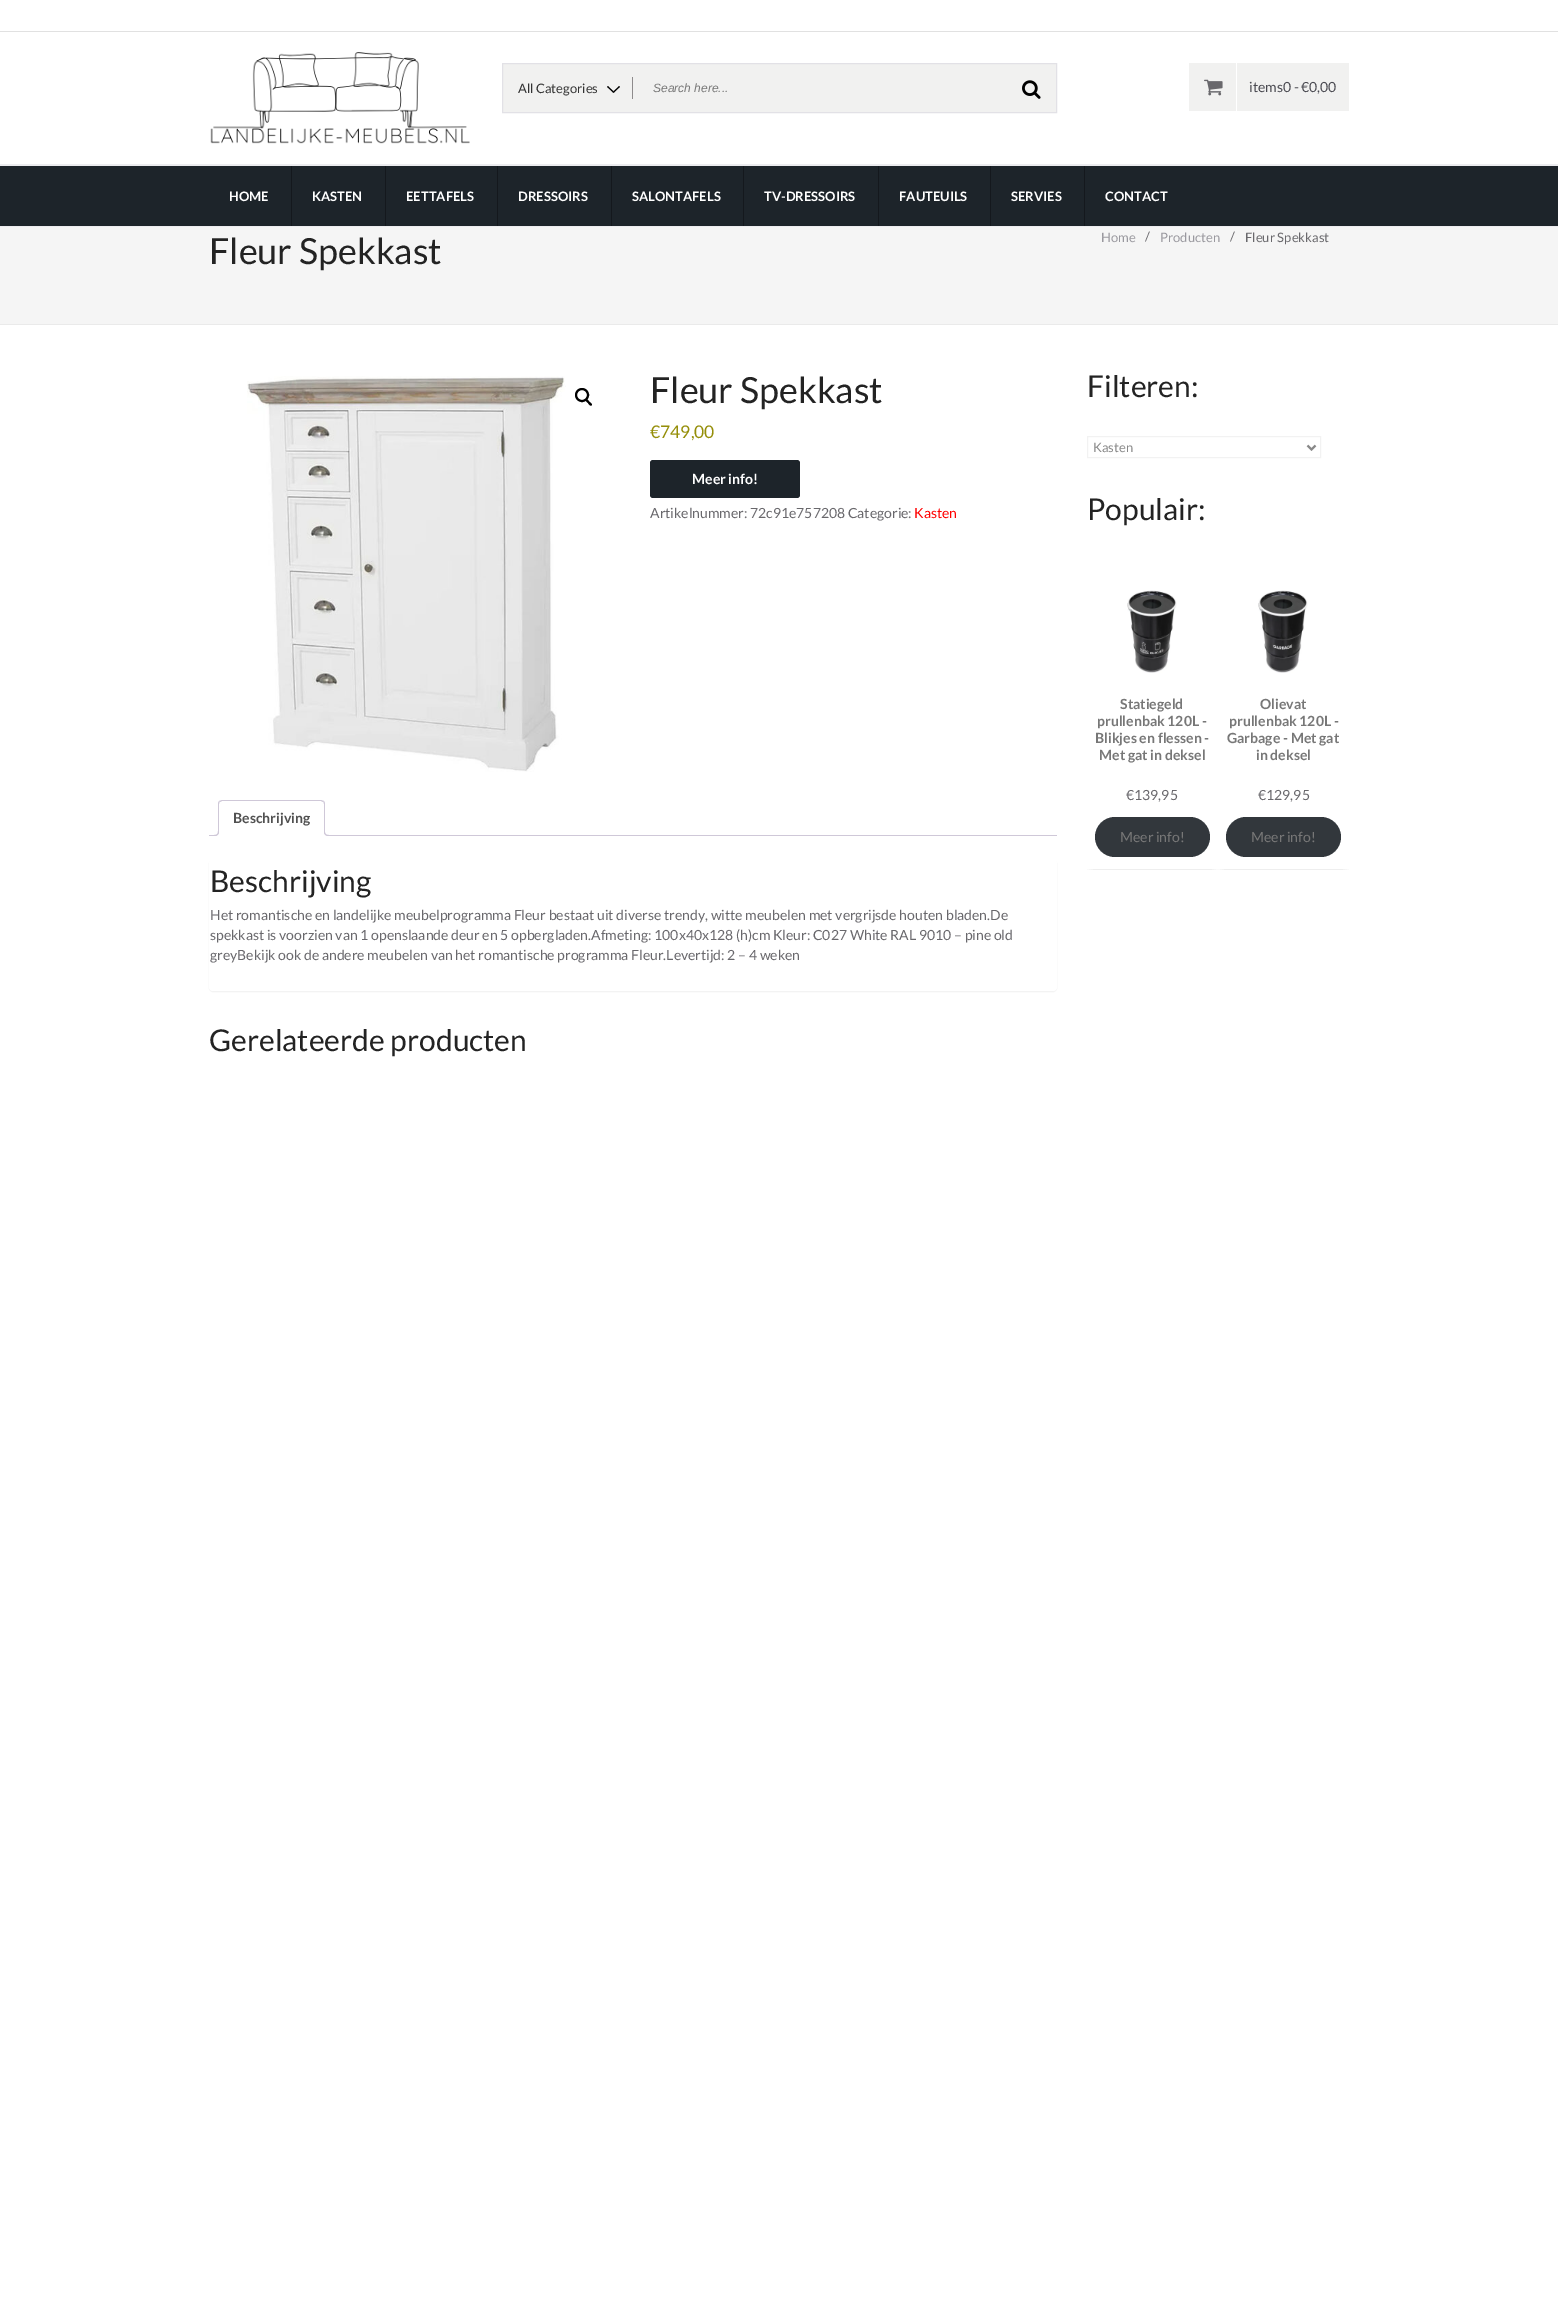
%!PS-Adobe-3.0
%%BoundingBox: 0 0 1558 2305
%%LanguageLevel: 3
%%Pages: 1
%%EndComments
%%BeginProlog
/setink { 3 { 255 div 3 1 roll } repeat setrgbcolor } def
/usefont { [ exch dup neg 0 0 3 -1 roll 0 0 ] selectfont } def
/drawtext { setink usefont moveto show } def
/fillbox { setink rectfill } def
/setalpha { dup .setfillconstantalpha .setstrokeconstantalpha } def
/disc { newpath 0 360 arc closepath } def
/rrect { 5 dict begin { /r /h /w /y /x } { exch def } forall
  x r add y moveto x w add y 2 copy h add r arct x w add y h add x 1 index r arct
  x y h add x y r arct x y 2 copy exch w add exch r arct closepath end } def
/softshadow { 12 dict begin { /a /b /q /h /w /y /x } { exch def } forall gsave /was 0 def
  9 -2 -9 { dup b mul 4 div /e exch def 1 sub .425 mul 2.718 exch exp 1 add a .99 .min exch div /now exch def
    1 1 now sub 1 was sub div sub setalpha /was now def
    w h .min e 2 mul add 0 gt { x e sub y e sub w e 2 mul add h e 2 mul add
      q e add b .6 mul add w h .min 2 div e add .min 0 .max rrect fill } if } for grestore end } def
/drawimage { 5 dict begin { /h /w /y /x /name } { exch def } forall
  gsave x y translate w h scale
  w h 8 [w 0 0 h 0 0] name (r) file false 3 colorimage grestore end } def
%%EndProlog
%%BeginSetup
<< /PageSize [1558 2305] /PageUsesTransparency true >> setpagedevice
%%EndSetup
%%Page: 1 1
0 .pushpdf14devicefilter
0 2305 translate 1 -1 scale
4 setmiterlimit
0 0 1558 2305 255 255 255 fillbox
0 31 1558 1 225 225 225 fillbox
(assets/img1.rgb) 210 52 260 92 drawimage
241 241 240 setink
502.5 63.5 moveto 1056.5 63.5 lineto 1056.5 112.5 lineto 502.5 112.5 lineto closepath gsave fill grestore
226 225 230 setink
stroke
(assets/img2.rgb) 607 86 13 7 drawimage
(All Categories) 518 93 /Lato-Regular 13 51 51 51 drawtext
632 77 1 22 142 139 140 fillbox
(Search here...) 653 92 /LiberationSans-Italic 12 119 119 119 drawtext
(assets/img3.rgb) 1022 80 19 19 drawimage
1189 63 160 48 241 241 240 fillbox
1236 63 1 48 255 255 255 fillbox
(assets/img4.rgb) 1204 79 19 17 drawimage
(items0 - €0,00) 1249 92 /Lato-Regular 14 74 74 81 drawtext
0 166 1558 60 29 36 42 fillbox
0 164 1558 2 236 236 239 fillbox
0 226 1558 1 236 236 239 fillbox
(HOME) 229 201 /Lato-Bold 13 255 255 255 drawtext
291 166 1 60 20 24 29 fillbox
(KASTEN) 312 201 /Lato-Bold 13 255 255 255 drawtext
385 166 1 60 20 24 29 fillbox
(EETTAFELS) 406 201 /Lato-Bold 13 255 255 255 drawtext
497 166 1 60 20 24 29 fillbox
(DRESSOIRS) 518 201 /Lato-Bold 13 255 255 255 drawtext
611 166 1 60 20 24 29 fillbox
(SALONTAFELS) 632 201 /Lato-Bold 13 255 255 255 drawtext
743 166 1 60 20 24 29 fillbox
(TV-DRESSOIRS) 764 201 /Lato-Bold 13 255 255 255 drawtext
878 166 1 60 20 24 29 fillbox
(FAUTEUILS) 899 201 /Lato-Bold 13 255 255 255 drawtext
990 166 1 60 20 24 29 fillbox
(SERVIES) 1011 201 /Lato-Bold 13 255 255 255 drawtext
1084 166 1 60 20 24 29 fillbox
(CONTACT) 1105 201 /Lato-Bold 13 255 255 255 drawtext
0 227 1558 97 245 245 245 fillbox
0 324 1558 1 234 234 234 fillbox
(Fleur Spekkast) 209 264 /Lato-Regular 36 35 35 35 drawtext
(Home) 1101 242 /Lato-Regular 13 153 152 158 drawtext
(/) 1145 241 /Lato-Regular 13 105 104 108 drawtext
(Producten) 1160 242 /Lato-Regular 13 153 152 158 drawtext
(/) 1230 241 /Lato-Regular 13 105 104 108 drawtext
(Fleur Spekkast) 1245 242 /Lato-Regular 13 105 104 108 drawtext
(assets/img5.rgb) 247 376 319 396 drawimage
0 0 0 setink
2 setlinewidth
582 395 6 disc stroke
586 399.5 moveto 587 398.5 589 401 589.5 402 curveto 590 402.5 593 404 591.5 405.5 curveto 590.5 406.5 588.5 404 588 403 curveto 587.5 402.5 585 401 586 399.5 curveto closepath fill
(Fleur Spekkast) 650 403 /Lato-Regular 36 35 35 35 drawtext
(€749,00) 650 438 /Lato-Regular 17.5 149 142 9 drawtext
29 36 42 setink
650 460 150 38 3 rrect fill
(Meer info!) 692 484 /Lato-Bold 14 255 255 255 drawtext
(Artikelnummer: 72c91e757208 Categorie:) 650 518 /Lato-Regular 14 105 104 108 drawtext
(Kasten) 914 518 /Lato-Regular 14 255 0 0 drawtext
209 835 848 1 207 200 216 fillbox
255 255 255 setink
222 800 moveto 321 800 lineto 323 800 325 802 325 804 curveto 325 836 lineto 218 836 lineto 218 804 lineto 218 802 220 800 222 800 curveto closepath fill
207 200 216 setink
222 800 moveto 219 801 lineto 220 802 lineto 222 801 lineto 321 801 lineto 323 802 lineto 324 801 lineto 321 800 lineto closepath fill
325 836 moveto 325 804 lineto 325 803 324.5 802 324 801 curveto 323 802 lineto 324 802 324 803 324 804 curveto 324 835 lineto closepath fill
255 255 255 setink
325 836 moveto 324 835 lineto 219 835 lineto 218 836 lineto closepath fill
207 200 216 setink
218 836 moveto 219 835 lineto 219 804 lineto 219 803 219 802 220 802 curveto 219 801 lineto 218.5 802 218 803 218 804 curveto closepath fill
(Beschrijving) 233 823 /Lato-Bold 14 81 81 81 drawtext
gsave
209 800 848 36 rectclip
255 255 255 setink
216 836 moveto 216 838 lineto 219.5 838 221 836.5 221 833 curveto 219 833 lineto 218.5 834.5 217.5 835.5 216 836 curveto closepath fill
grestore
207 200 216 setink
214 831 moveto 219 831 lineto 219 834.5 217.5 836 214 836 curveto closepath 214 831 moveto 218 831 lineto 218 834 217 835 214 835 curveto closepath eofill
gsave
209 800 848 36 rectclip
255 255 255 setink
322 833 moveto 322 836.5 323.5 838 327 838 curveto 327 836 lineto 325.5 835.5 324.5 834.5 324 833 curveto closepath fill
grestore
324 831 moveto 329 831 lineto 329 836 lineto 326.5 836 324 835 324 832 curveto closepath 325 831 moveto 329 831 lineto 329 835 lineto 327 835 325 834.5 325 832 curveto closepath eofill
0 0 0 setink
209 860 848 132 4 0.5 0.05 softshadow
255 255 255 setink
209 859 848 132 4 rrect fill
(Beschrijving) 210 892 /Lato-Regular 30 35 35 35 drawtext
(Het romantische en landelijke meubelprogramma Fleur bestaat uit diverse trendy, witte meubelen met vergrijsde houten bladen.De) 210 920 /Lato-Regular 14 105 104 108 drawtext
(spekkast is voorzien van 1 openslaande deur en 5 opbergladen.Afmeting: 100x40x128 \(h\)cm Kleur: C027 White RAL 9010 – pine old) 210 940 /Lato-Regular 14 105 104 108 drawtext
(greyBekijk ook de andere meubelen van het romantische programma Fleur.Levertijd: 2 – 4 weken) 210 960 /Lato-Regular 14 105 104 108 drawtext
(Gerelateerde producten) 209 1051 /Lato-Regular 30 35 35 35 drawtext
(Filteren:) 1087 397 /Lato-Regular 30 35 35 35 drawtext
242 242 242 setink
1 setlinewidth
1087.5 436.5 233 21 rectstroke
136 136 136 setink
2 setlinewidth
1307.5 445.5 moveto 1311.5 449.5 lineto 1315.5 445.5 lineto stroke
(Kasten) 1093 452 /Lato-Regular 13 136 136 136 drawtext
(Populair:) 1087 520 /Lato-Regular 30 35 35 35 drawtext
238 238 238 setink
1218 870 moveto 1087 870 lineto 1095 869 lineto 1210 869 lineto closepath fill
(assets/img6.rgb) 1127 590 50 83 drawimage
(Statiegeld) 1120 709 /Lato-Bold 14 119 119 119 drawtext
(prullenbak 120L -) 1097 726 /Lato-Bold 14 119 119 119 drawtext
(Blikjes en flessen -) 1095 743 /Lato-Bold 14 119 119 119 drawtext
(Met gat in deksel) 1099 760 /Lato-Bold 14 119 119 119 drawtext
(€139,95) 1126 800 /Lato-Regular 14 105 104 108 drawtext
50 55 60 setink
1095 817 115 40 20 rrect fill
(Meer info!) 1120 842 /Lato-Regular 14 119 119 119 drawtext
238 238 238 setink
1349 870 moveto 1218 870 lineto 1226 869 lineto 1341 869 lineto closepath fill
(assets/img7.rgb) 1258 590 50 83 drawimage
(Olievat) 1260 709 /Lato-Bold 14 119 119 119 drawtext
(prullenbak 120L -) 1229 726 /Lato-Bold 14 119 119 119 drawtext
(Garbage - Met gat) 1227 743 /Lato-Bold 14 119 119 119 drawtext
(in deksel) 1256 760 /Lato-Bold 14 119 119 119 drawtext
(€129,95) 1258 800 /Lato-Regular 14 105 104 108 drawtext
50 55 60 setink
1226 817 115 40 20 rrect fill
(Meer info!) 1251 842 /Lato-Regular 14 119 119 119 drawtext
.poppdf14devicefilter showpage
%%EOF
